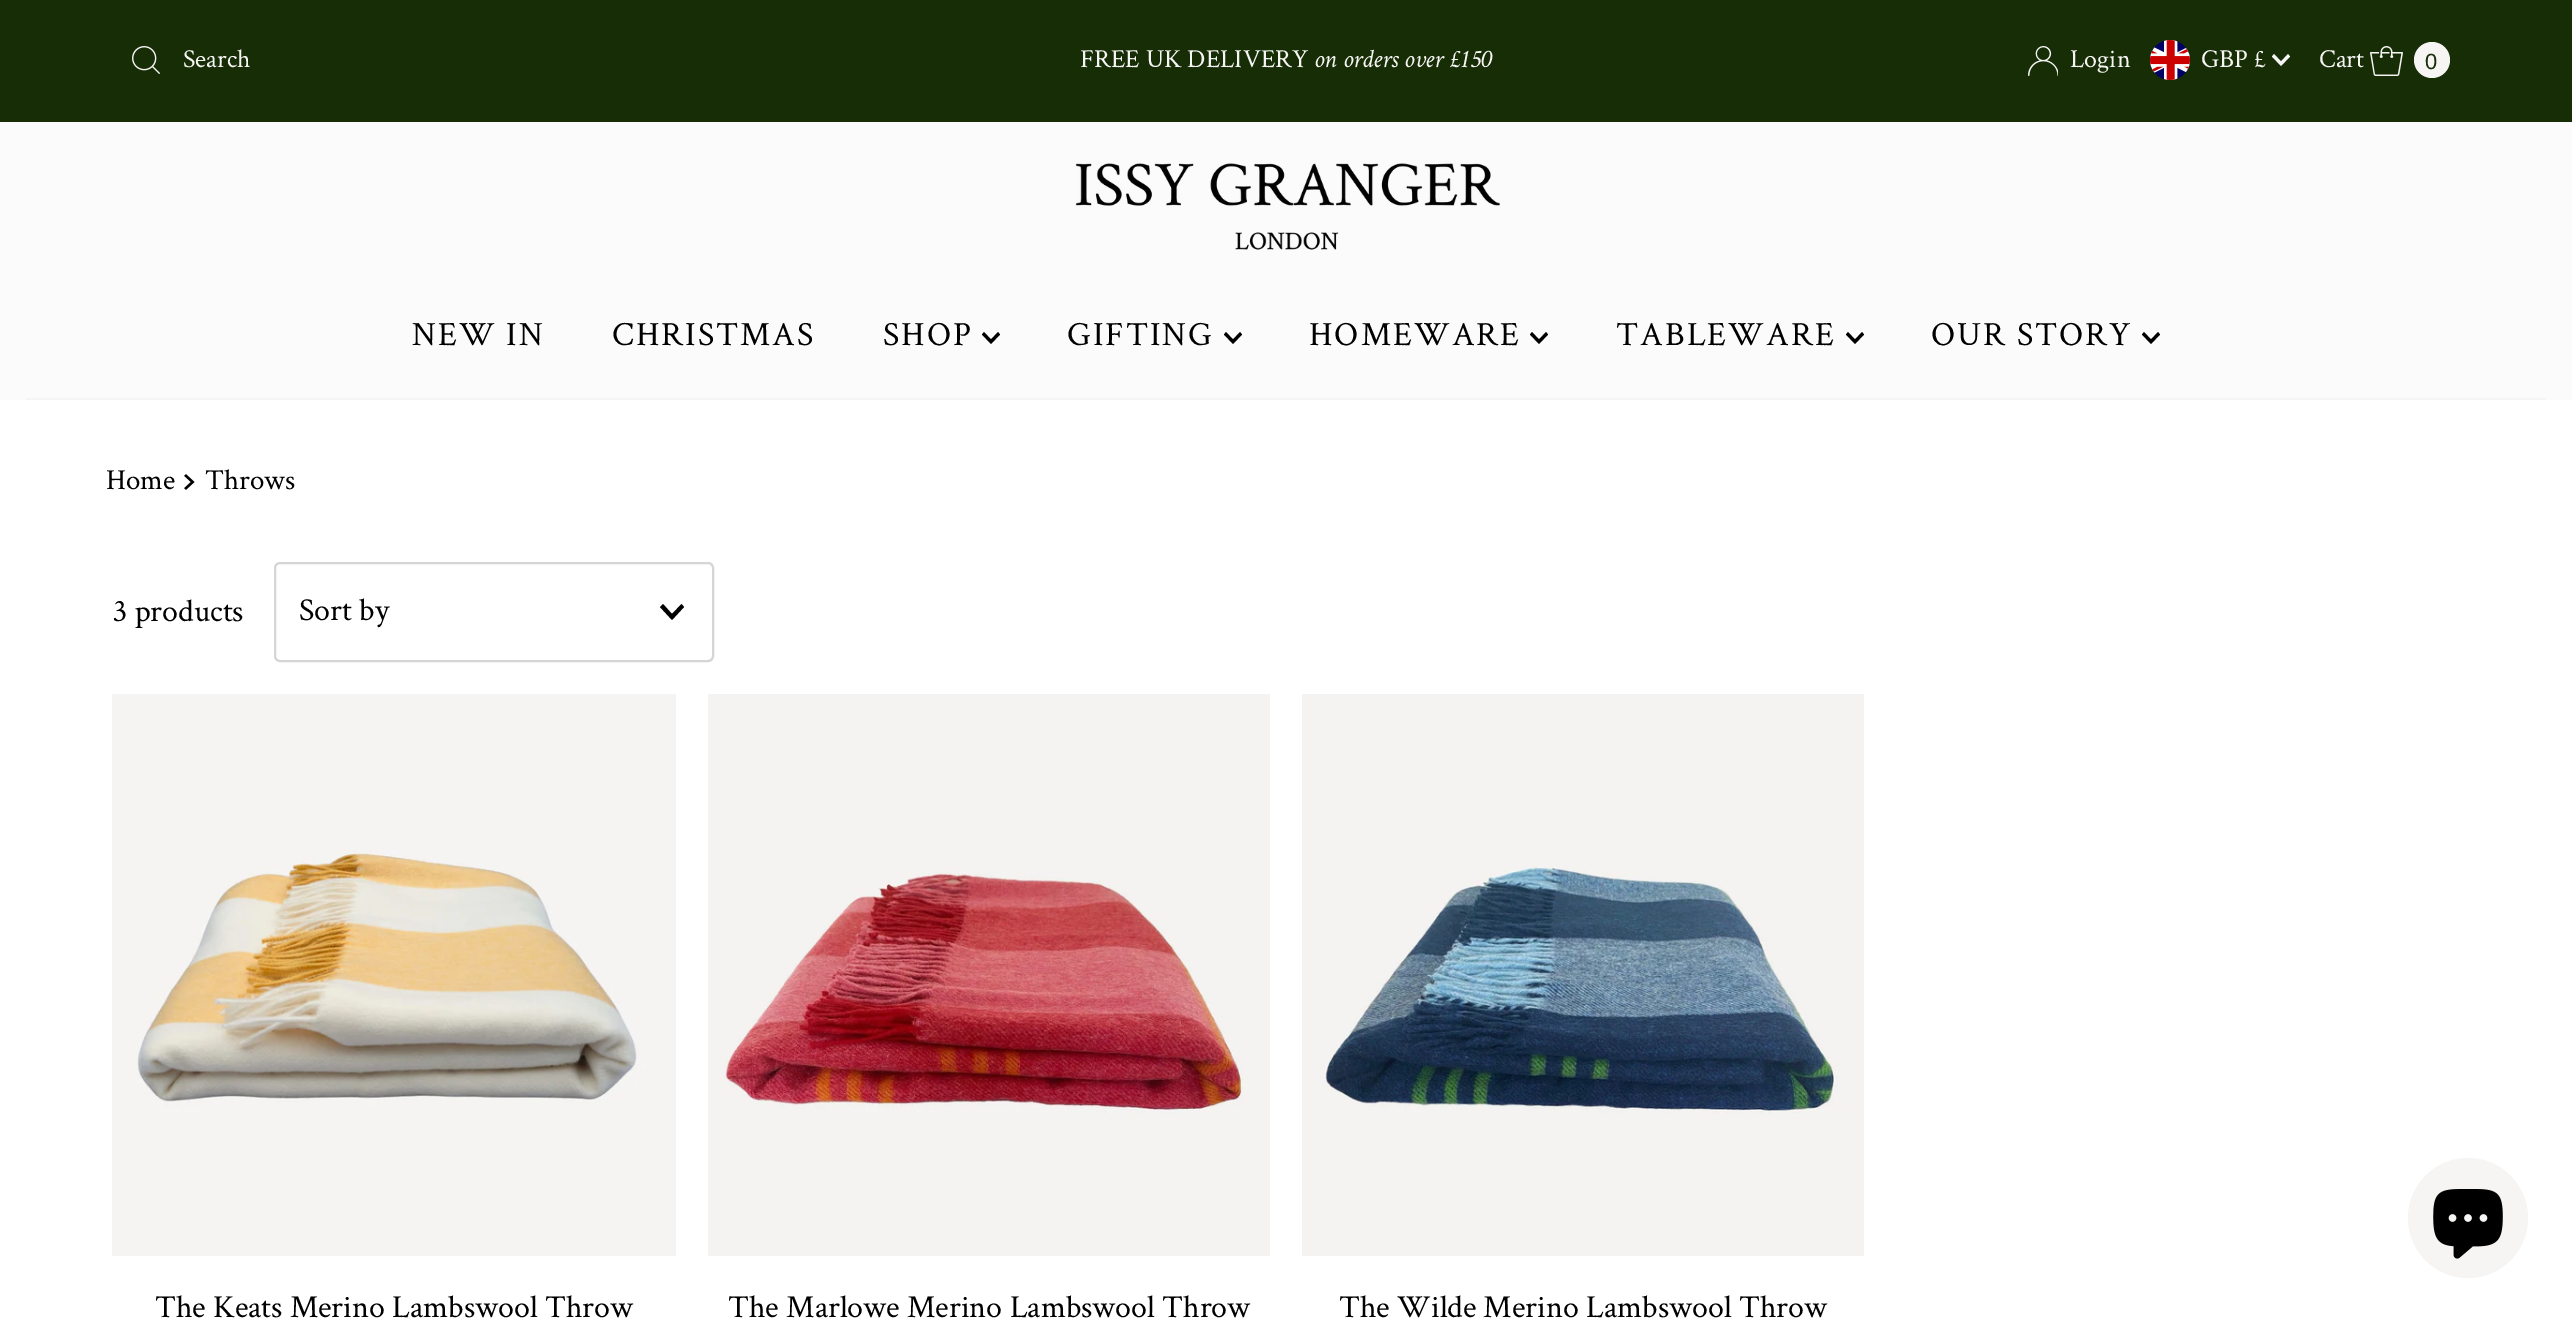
%!PS-Adobe-3.0
%%BoundingBox: 0 0 2572 1319
%%LanguageLevel: 3
%%Pages: 1
%%EndComments
%%BeginProlog
/setink { 3 { 255 div 3 1 roll } repeat setrgbcolor } def
/usefont { [ exch dup neg 0 0 3 -1 roll 0 0 ] selectfont } def
/drawtext { setink usefont moveto show } def
/fillbox { setink rectfill } def
/disc { newpath 0 360 arc closepath } def
/rrect { 5 dict begin { /r /h /w /y /x } { exch def } forall
  x r add y moveto x w add y 2 copy h add r arct x w add y h add x 1 index r arct
  x y h add x y r arct x y 2 copy exch w add exch r arct closepath end } def
/drawimage { 5 dict begin { /h /w /y /x /name } { exch def } forall
  gsave x y translate w h scale
  w h 8 [w 0 0 h 0 0] name (r) file false 3 colorimage grestore end } def
%%EndProlog
%%BeginSetup
<< /PageSize [2572 1319] >> setpagedevice
%%EndSetup
%%Page: 1 1
0 1319 translate 1 -1 scale
4 setmiterlimit
0 0 2572 1319 255 255 255 fillbox
0 0 2572 122 22 45 6 fillbox
(assets/img1.rgb) 132 46 28 28 drawimage
(Search) 183 67 /CrimsonText-Regular 26 246 245 243 drawtext
(FREE UK DELIVERY) 1080 67 /CrimsonText-Regular 26 246 245 243 drawtext
(on orders over £150) 1314 67 /CrimsonText-Italic 26 246 245 243 drawtext
(assets/img2.rgb) 2028 46 30 30 drawimage
(Login) 2070 67 /CrimsonText-Regular 26 246 245 243 drawtext
(assets/img3.rgb) 2150 40 40 40 drawimage
(GBP £) 2201 67 /CrimsonText-Regular 26 246 245 243 drawtext
2288 54 moveto 2281 61.5 lineto 2274 54 lineto 2272 56.5 lineto 2281 66 lineto 2290 56.5 lineto closepath fill
(Cart) 2319 67 /CrimsonText-Regular 26 246 245 243 drawtext
(assets/img4.rgb) 2370 46 33 30 drawimage
2432 60 18 disc fill
(0) 2425 69 /LiberationSans-Regular 22 22 45 6 drawtext
0 122 2572 278 251 251 251 fillbox
(assets/img5.rgb) 1075 163 425 87 drawimage
/CrimsonText-Regular 34 usefont
0 0 0 setink
412 345 moveto 2 0 (NEW IN) ashow
612 345 moveto 2 0 (CHRISTMAS) ashow
883 345 moveto 2 0 (SHOP) ashow
998 332 moveto 991 339.5 lineto 984 332 lineto 982 334.5 lineto 991 344 lineto 1000 334.5 lineto closepath fill
1067 345 moveto 2 0 (GIFTING) ashow
1240 332 moveto 1233 339.5 lineto 1226 332 lineto 1224 334.5 lineto 1233 344 lineto 1242 334.5 lineto closepath fill
1309 345 moveto 2 0 (HOMEWARE) ashow
1546 332 moveto 1539 339.5 lineto 1532 332 lineto 1530 334.5 lineto 1539 344 lineto 1548 334.5 lineto closepath fill
1616 345 moveto 2 0 (TABLEWARE) ashow
1862 332 moveto 1855 339.5 lineto 1848 332 lineto 1846 334.5 lineto 1855 344 lineto 1864 334.5 lineto closepath fill
1931 345 moveto 2 0 (OUR STORY) ashow
2158 332 moveto 2151 339.5 lineto 2144 332 lineto 2142 334.5 lineto 2151 344 lineto 2160 334.5 lineto closepath fill
26 398 2520 2 246 245 243 fillbox
(Home) 106 489 /CrimsonText-Regular 29 0 0 0 drawtext
(assets/img6.rgb) 184 474 11 16 drawimage
(Throws) 205 489 /CrimsonText-Regular 29 0 0 0 drawtext
(3 products) 113 621 /CrimsonText-Regular 32 0 0 0 drawtext
213 213 213 setink
2 setlinewidth
275 563 438 98 5 rrect stroke
(Sort by) 299 620 /CrimsonText-Regular 32 0 0 0 drawtext
681.5 604 moveto 672 614 lineto 663 604 lineto 660 607 lineto 672 620 lineto 684 607 lineto closepath fill
(assets/img7.rgb) 112 694 564 562 drawimage
(The Keats Merino Lambswool Throw) 155 1317 /CrimsonText-Regular 32 0 0 0 drawtext
(assets/img8.rgb) 708 694 562 562 drawimage
(The Marlowe Merino Lambswool Throw) 728 1317 /CrimsonText-Regular 32 0 0 0 drawtext
(assets/img9.rgb) 1302 694 562 562 drawimage
(The Wilde Merino Lambswool Throw) 1339 1317 /CrimsonText-Regular 32 0 0 0 drawtext
246 245 243 setink
2468 1218 60 disc fill
(assets/img10.rgb) 2433 1189 70 70 drawimage
showpage
%%EOF
